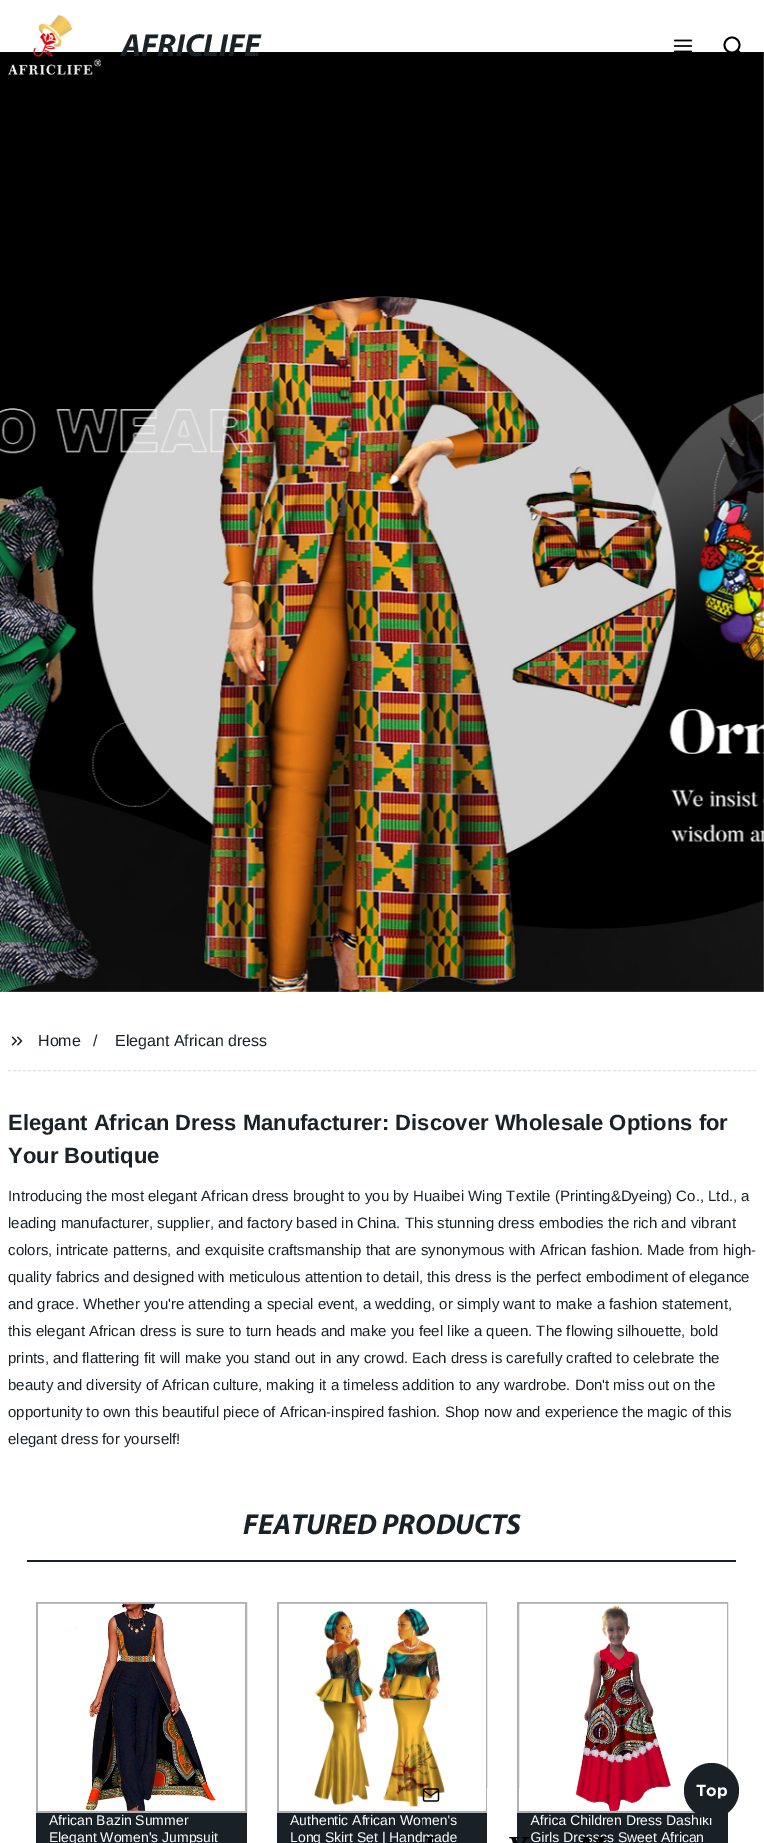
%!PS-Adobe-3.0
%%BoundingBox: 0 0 764 1843
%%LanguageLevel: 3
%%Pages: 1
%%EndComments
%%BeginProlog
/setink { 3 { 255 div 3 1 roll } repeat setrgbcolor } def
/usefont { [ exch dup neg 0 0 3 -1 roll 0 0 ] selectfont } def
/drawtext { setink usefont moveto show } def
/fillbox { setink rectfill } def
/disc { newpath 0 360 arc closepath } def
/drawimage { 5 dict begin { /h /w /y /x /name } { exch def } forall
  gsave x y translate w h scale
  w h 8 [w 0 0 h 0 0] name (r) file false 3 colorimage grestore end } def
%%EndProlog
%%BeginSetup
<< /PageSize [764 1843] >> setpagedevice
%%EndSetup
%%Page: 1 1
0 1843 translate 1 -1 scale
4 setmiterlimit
0 0 764 1843 255 255 255 fillbox
(assets/img3.rgb) 0 52 764 940 drawimage
(assets/img1.rgb) 8 15 93 60 drawimage
(AFRICLIFE) 121 56 /Myriad-BoldItalic 32 27 34 39 drawtext
(assets/img2.rgb) 673 39 20 13 drawimage
0 0 0 setink
1.8 setlinewidth
732 45 7.5 disc stroke
1 setlinecap
1 setlinejoin
741 54 moveto 737.5 50.5 lineto stroke
224 225 229 setink
1 setlinewidth
0 setlinecap
0 setlinejoin
[3 2] 0 setdash
8 1070.5 moveto 756 1070.5 lineto stroke
(assets/img4.rgb) 11 1036 12 10 drawimage
(Home) 38 1046 /LiberationSans-Regular 16 27 34 39 drawtext
(/) 93 1046 /LiberationSans-Regular 16 27 34 39 drawtext
(Elegant African dress) 115 1046 /LiberationSans-Regular 16 27 34 39 drawtext
(Elegant African Dress Manufacturer: Discover Wholesale Options for) 8 1130 /LiberationSans-Bold 22 27 34 39 drawtext
(Your Boutique) 8 1163 /LiberationSans-Bold 22 27 34 39 drawtext
(Introducing the most elegant African dress brought to you by Huaibei Wing Textile \(Printing&Dyeing\) Co., Ltd., a) 8 1201 /LiberationSans-Regular 15 27 34 39 drawtext
(leading manufacturer, supplier, and factory based in China. This stunning dress embodies the rich and vibrant) 8 1228 /LiberationSans-Regular 15 27 34 39 drawtext
(colors, intricate patterns, and exquisite craftsmanship that are synonymous with African fashion. Made from high-) 8 1255 /LiberationSans-Regular 15 27 34 39 drawtext
(quality fabrics and designed with meticulous attention to detail, this dress is the perfect embodiment of elegance) 8 1282 /LiberationSans-Regular 15 27 34 39 drawtext
(and grace. Whether you're attending a special event, a wedding, or simply want to make a fashion statement,) 8 1309 /LiberationSans-Regular 15 27 34 39 drawtext
(this elegant African dress is sure to turn heads and make you feel like a queen. The flowing silhouette, bold) 8 1336 /LiberationSans-Regular 15 27 34 39 drawtext
(prints, and flattering fit will make you stand out in any crowd. Each dress is carefully crafted to celebrate the) 8 1363 /LiberationSans-Regular 15 27 34 39 drawtext
(beauty and diversity of African culture, making it a timeless addition to any wardrobe. Don't miss out on the) 8 1390 /LiberationSans-Regular 15 27 34 39 drawtext
(opportunity to own this beautiful piece of African-inspired fashion. Shop now and experience the magic of this) 8 1417 /LiberationSans-Regular 15 27 34 39 drawtext
(elegant dress for yourself!) 8 1444 /LiberationSans-Regular 15 27 34 39 drawtext
(FEATURED PRODUCTS) 243 1534 /Myriad-BoldItalic 29 27 34 39 drawtext
27 1560 709 2 26 33 38 fillbox
175 178 179 setink
2 setlinewidth
[] 0 setdash
37 1603 209 209 rectstroke
(assets/img5.rgb) 38 1603 207 208 drawimage
36 1813 211 30 26 33 38 fillbox
(African Bazin Summer) 49 1825 /LiberationSans-Regular 14 255 255 255 drawtext
(Elegant Women's Jumpsuit) 49 1842 /LiberationSans-Regular 14 255 255 255 drawtext
175 178 179 setink
278 1603 208 209 rectstroke
(assets/img6.rgb) 279 1603 207 208 drawimage
277 1813 210 30 26 33 38 fillbox
(Authentic African Women's) 290 1825 /LiberationSans-Regular 14 255 255 255 drawtext
(Long Skirt Set | Handmade) 290 1842 /LiberationSans-Regular 14 255 255 255 drawtext
175 178 179 setink
518 1603 209 209 rectstroke
(assets/img7.rgb) 520 1603 207 208 drawimage
517 1813 211 30 26 33 38 fillbox
(Africa Children Dress Dashiki) 530 1825 /LiberationSans-Regular 14 255 255 255 drawtext
(Girls Dresses Sweet African) 530 1842 /LiberationSans-Regular 14 255 255 255 drawtext
(assets/img8.rgb) 422 1788 185 55 drawimage
26 33 38 setink
711.5 1790.5 27.5 disc fill
(Top) 696 1796 /Gotham-Bold 16 255 255 255 drawtext
showpage
%%EOF
